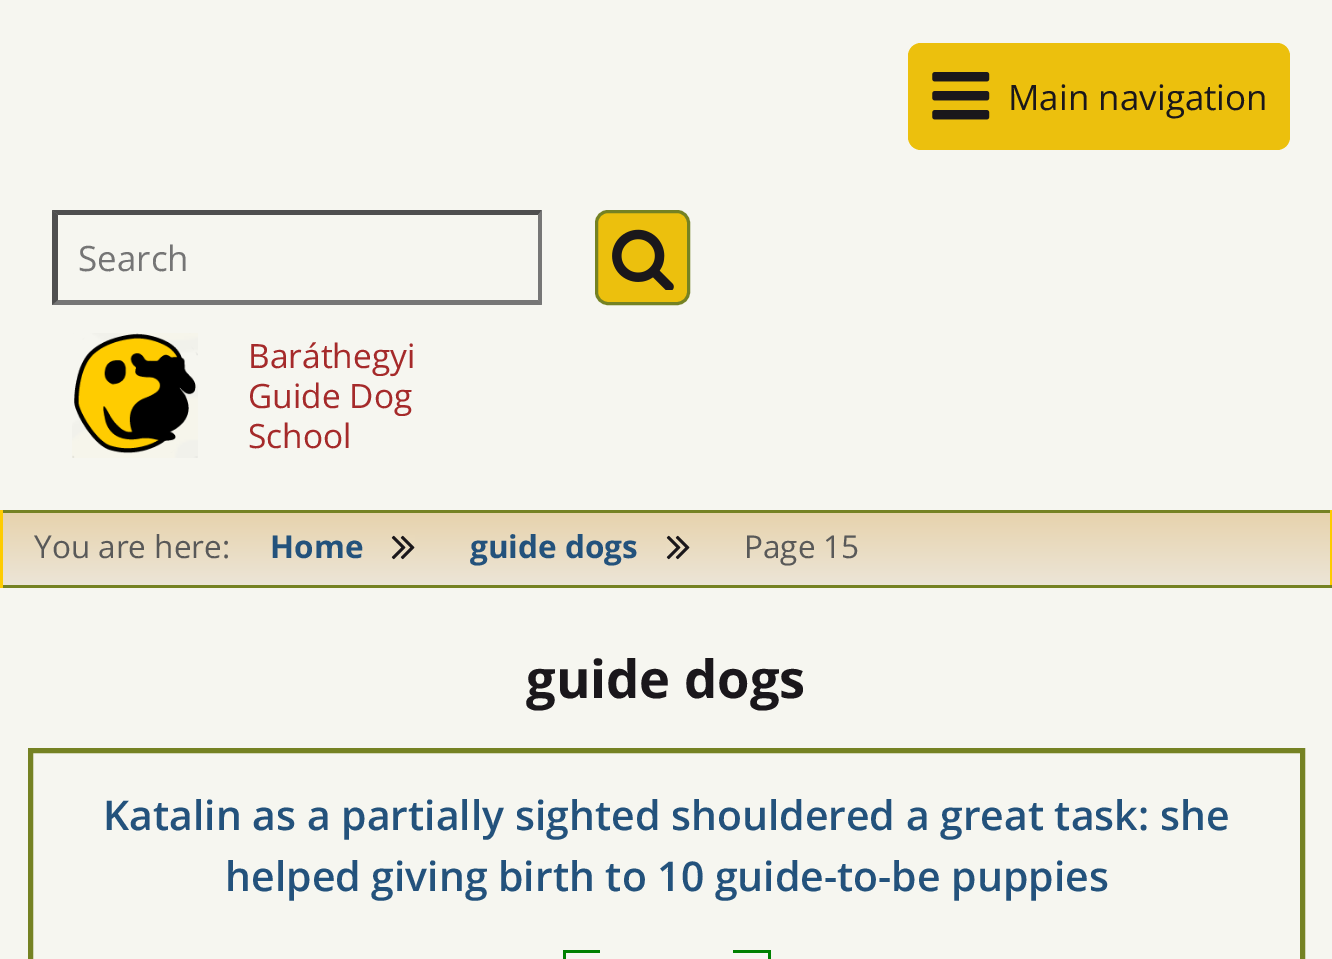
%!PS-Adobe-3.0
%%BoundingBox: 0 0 1332 959
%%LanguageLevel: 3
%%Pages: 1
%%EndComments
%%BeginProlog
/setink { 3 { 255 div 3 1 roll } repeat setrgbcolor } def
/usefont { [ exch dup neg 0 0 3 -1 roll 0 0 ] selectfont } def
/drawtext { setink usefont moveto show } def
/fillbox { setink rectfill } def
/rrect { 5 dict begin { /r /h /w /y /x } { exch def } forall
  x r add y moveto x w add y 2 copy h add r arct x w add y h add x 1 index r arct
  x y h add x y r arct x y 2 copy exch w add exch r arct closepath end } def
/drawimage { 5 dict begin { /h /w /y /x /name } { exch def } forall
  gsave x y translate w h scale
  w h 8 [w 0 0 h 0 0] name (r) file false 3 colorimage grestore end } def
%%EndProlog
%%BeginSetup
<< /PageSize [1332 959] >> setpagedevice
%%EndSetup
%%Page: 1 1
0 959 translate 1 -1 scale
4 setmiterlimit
0 0 1332 959 246 246 240 fillbox
236 192 13 setink
908 43 382 107 13 rrect fill
(assets/img1.rgb) 932 72 58 48 drawimage
(Main navigation) 1008 110 /OpenSans-Regular 35 26 23 27 drawtext
79 79 79 setink
52 210 moveto 542 210 lineto 538 215 lineto 58 215 lineto closepath fill
118 118 118 setink
542 210 moveto 542 305 lineto 538 300 lineto 538 215 lineto closepath fill
542 305 moveto 52 305 lineto 58 300 lineto 538 300 lineto closepath fill
79 79 79 setink
52 305 moveto 52 210 lineto 58 215 lineto 58 300 lineto closepath fill
(Search) 78 271 /OpenSans-Regular 35 117 117 117 drawtext
236 192 13 setink
596.5 211.5 92 92 11.5 rrect gsave fill grestore
117 130 35 setink
3 setlinewidth
stroke
(assets/img2.rgb) 612 229 62 61 drawimage
(assets/img3.rgb) 72 333 126 125 drawimage
(Baráthegyi) 248 368 /OpenSans-Regular 33.5 165 42 42 drawtext
(Guide Dog) 248 408 /OpenSans-Regular 33.5 165 42 42 drawtext
(School) 248 448 /OpenSans-Regular 33.5 165 42 42 drawtext
gsave 3 513 moveto 1330 513 lineto 1330 585 lineto 3 585 lineto closepath clip newpath
<< /ShadingType 2 /ColorSpace /DeviceRGB /Coords [666 512 666 585] /Extend [true true] /Function << /FunctionType 2 /Domain [0 1] /C0 [0.906 0.827 0.675] /C1 [0.925 0.898 0.843] /N 1 >> >> shfill grestore
0 510 1332 3 117 130 35 fillbox
1330 510 2 78 254 204 0 fillbox
0 585 1332 3 117 130 35 fillbox
0 510 3 78 254 204 0 fillbox
(You are here:) 34 558 /OpenSans-Regular 31.5 89 89 89 drawtext
(Home) 270 558 /OpenSans-Bold 31.5 35 82 124 drawtext
(assets/img4.rgb) 391 535 24 25 drawimage
(guide dogs) 470 558 /OpenSans-Bold 31.5 35 82 124 drawtext
(assets/img4.rgb) 666 535 24 25 drawimage
(Page 15) 744 558 /OpenSans-Regular 31.5 89 89 89 drawtext
(guide dogs) 526 698 /OpenSans-Bold 52.5 26 23 27 drawtext
117 130 35 setink
5 setlinewidth
30.5 750.5 1272 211 rectstroke
(Katalin as a partially sighted shouldered a great task: she) 103 830 /OpenSans-SemiBold 40.95 35 82 124 drawtext
(helped giving birth to 10 guide-to-be puppies) 225 891 /OpenSans-SemiBold 40.95 35 82 124 drawtext
563 950 37 3 0 128 0 fillbox
563 950 3 9 0 128 0 fillbox
733 950 37 3 0 128 0 fillbox
768 950 3 9 0 128 0 fillbox
showpage
%%EOF
